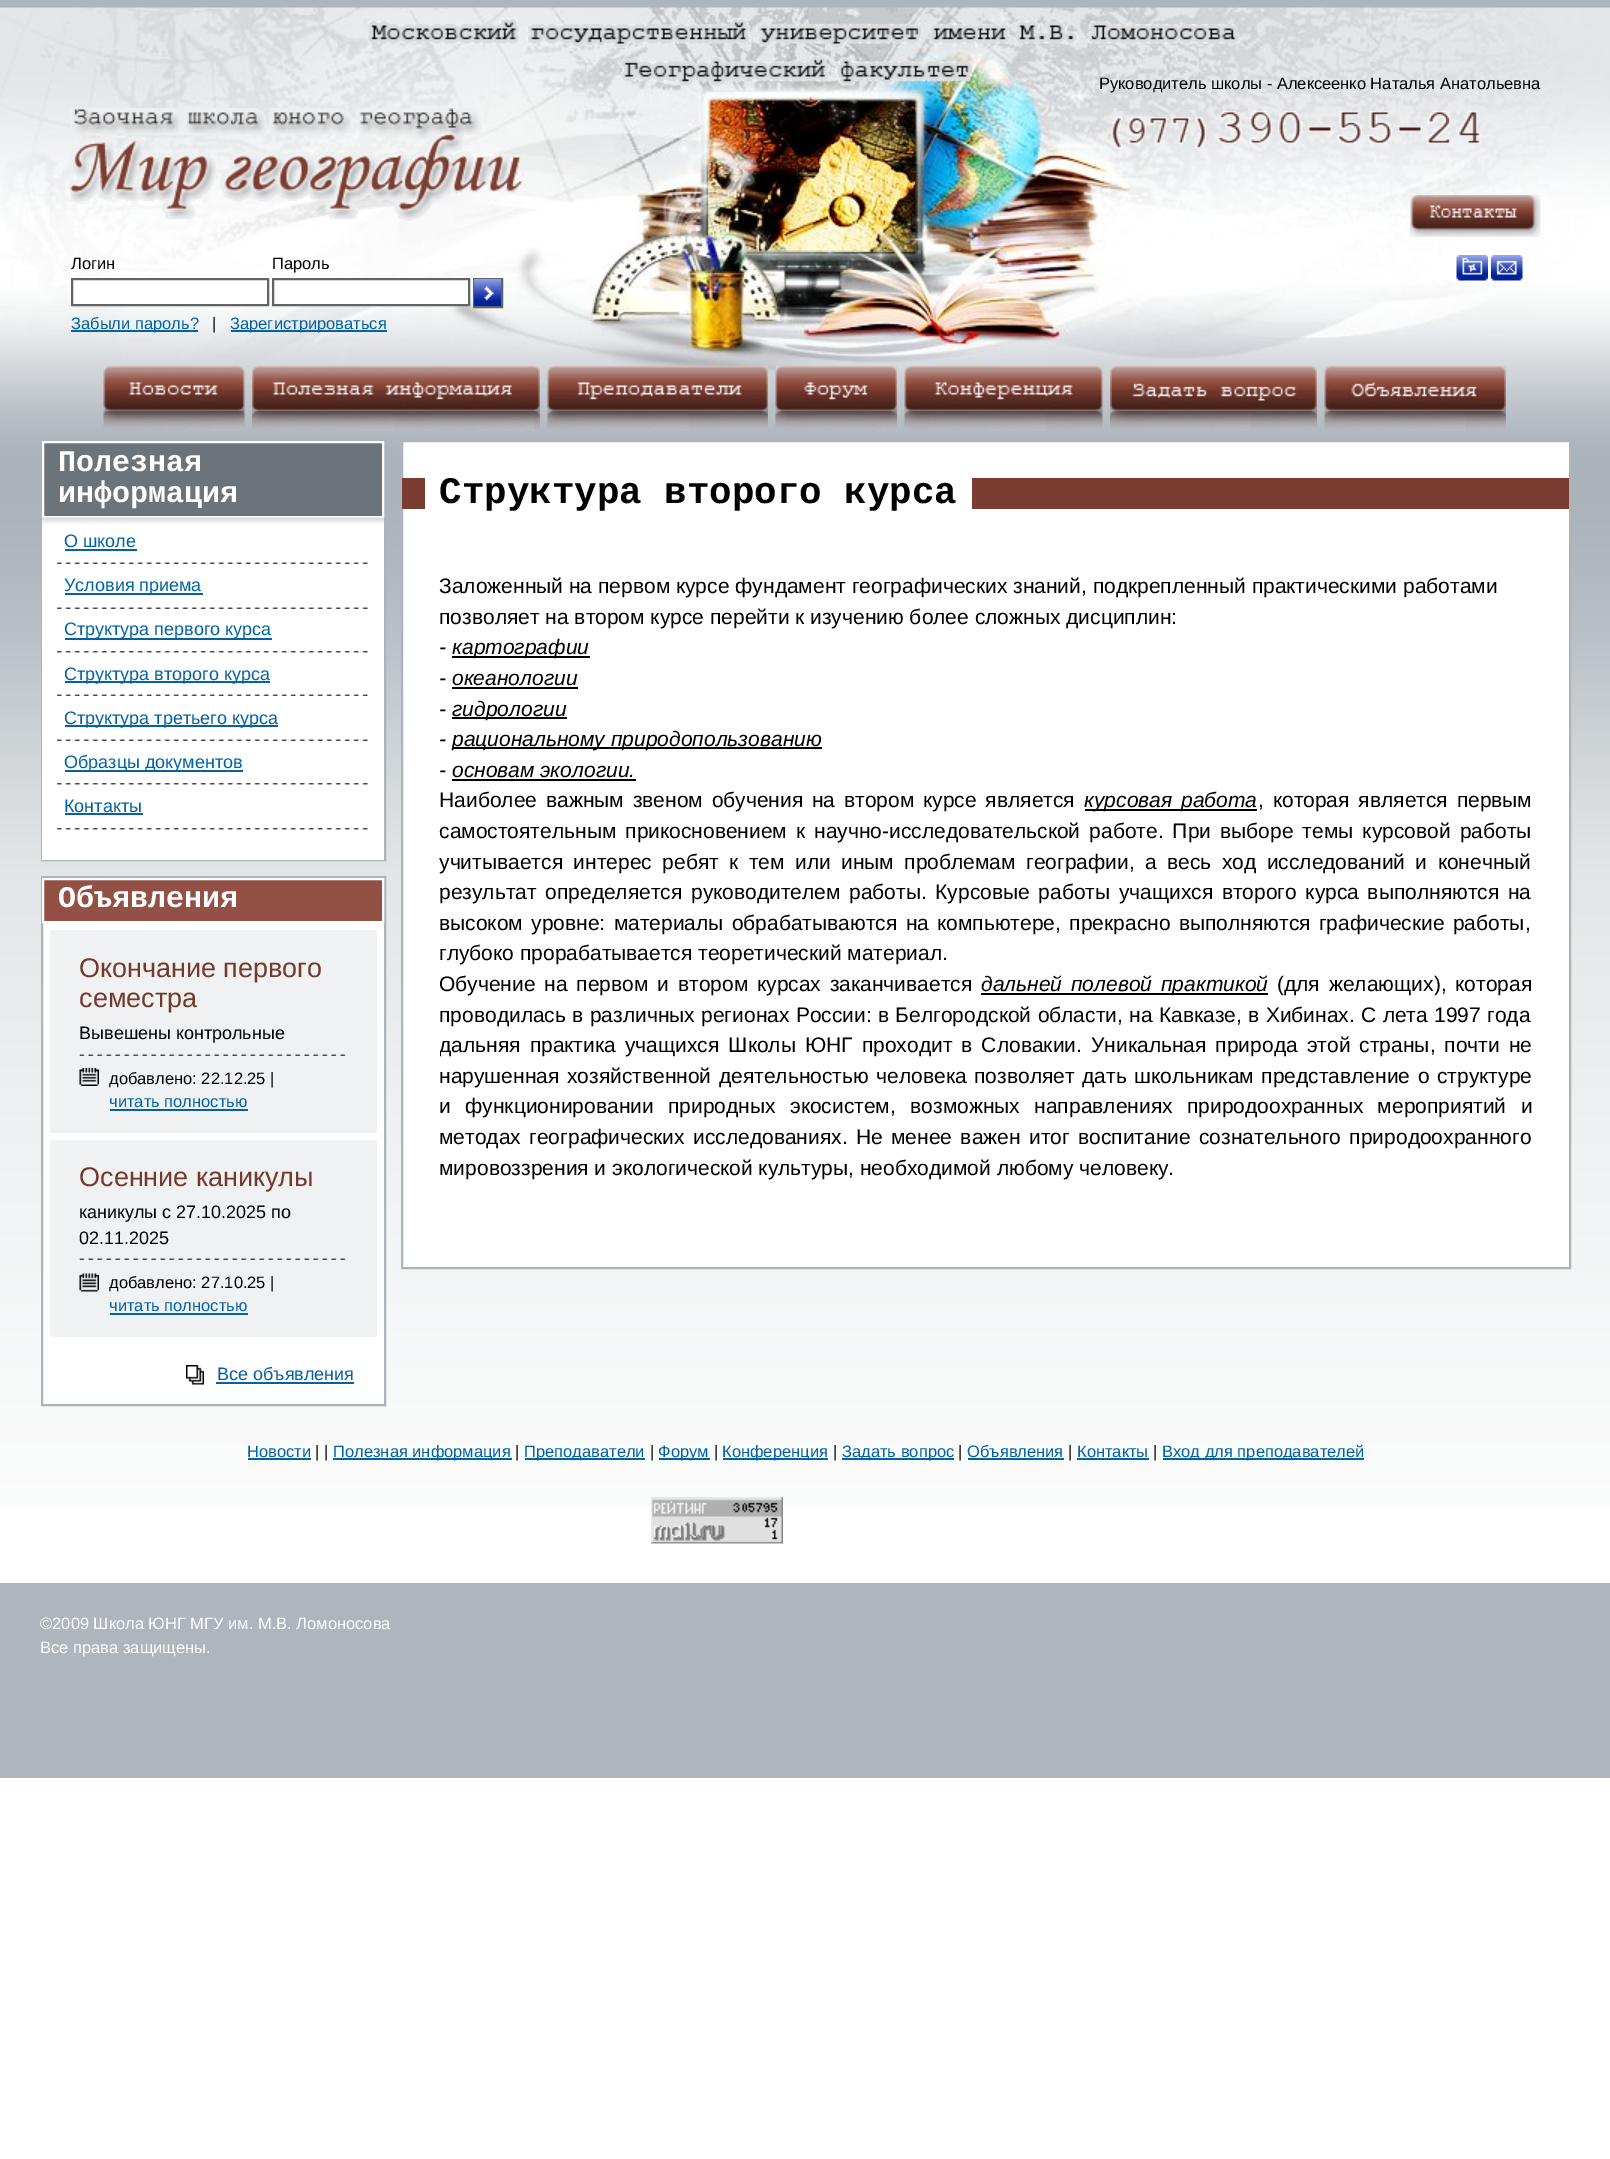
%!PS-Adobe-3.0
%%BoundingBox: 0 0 1610 2159
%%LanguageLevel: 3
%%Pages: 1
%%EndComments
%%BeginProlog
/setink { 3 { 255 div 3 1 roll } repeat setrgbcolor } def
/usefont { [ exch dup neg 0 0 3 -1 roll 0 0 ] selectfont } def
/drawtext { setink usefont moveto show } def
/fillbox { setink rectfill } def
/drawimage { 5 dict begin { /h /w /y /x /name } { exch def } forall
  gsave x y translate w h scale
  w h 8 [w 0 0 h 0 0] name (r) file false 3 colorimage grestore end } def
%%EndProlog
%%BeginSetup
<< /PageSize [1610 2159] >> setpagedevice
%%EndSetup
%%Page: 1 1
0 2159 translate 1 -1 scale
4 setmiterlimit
0 0 1610 2159 255 255 255 fillbox
(assets/img1.rgb) 0 373 1610 1134 drawimage
0 0 1610 8 174 181 188 fillbox
(assets/img2.rgb) 0 7 1610 366 drawimage
(assets/img3.rgb) 366 17 875 69 drawimage
(Руководитель школы - Алексеенко Наталья Анатольевна) 1099 89 /LiberationSans-Regular 16.5 0 0 0 drawtext
(assets/img4.rgb) 1111 110 370 39 drawimage
(assets/img5.rgb) 70 108 454 113 drawimage
(assets/img6.rgb) 1410 195 131 42 drawimage
(Логин) 71 269 /LiberationSans-Regular 16.5 0 0 0 drawtext
255 255 255 setink
72 279 moveto 268 279 lineto 268 305 lineto 72 305 lineto closepath gsave fill grestore
99 99 99 setink
2 setlinewidth
stroke
(Пароль) 272 269 /LiberationSans-Regular 16.5 0 0 0 drawtext
255 255 255 setink
273 279 moveto 469 279 lineto 469 305 lineto 273 305 lineto closepath gsave fill grestore
99 99 99 setink
stroke
474 279 28 28 rectstroke
(assets/img7.rgb) 474 279 27 27 drawimage
71 330 127 2 2 98 163 fillbox
(Забыли пароль?) 71 329 /LiberationSans-Regular 16.5 2 98 163 drawtext
(|) 212 329 /LiberationSans-Regular 16.5 0 0 0 drawtext
231 330 156 2 2 98 163 fillbox
(Зарегистрироваться) 230 329 /LiberationSans-Regular 16.5 2 98 163 drawtext
(assets/img8.rgb) 1456 255 32 26 drawimage
(assets/img9.rgb) 1491 255 32 26 drawimage
(assets/img10.rgb) 103 366 142 66 drawimage
(assets/img11.rgb) 252 366 288 66 drawimage
(assets/img12.rgb) 547 366 221 66 drawimage
(assets/img13.rgb) 775 366 122 66 drawimage
(assets/img14.rgb) 904 366 199 66 drawimage
(assets/img15.rgb) 1110 366 207 66 drawimage
(assets/img16.rgb) 1324 366 182 66 drawimage
172 179 186 setink
42 441 343 419 rectstroke
108 116 123 setink
43 442 moveto 383 442 lineto 383 517 lineto 43 517 lineto closepath gsave fill grestore
255 255 255 setink
stroke
(Полезная) 58 471 /LiberationMono-Bold 30 255 255 255 drawtext
(информация) 58 502 /LiberationMono-Bold 30 255 255 255 drawtext
42 525 342 335 255 255 255 fillbox
(assets/img17.rgb) 42 517 342 8 drawimage
(О школе) 64 547 /LiberationSans-Regular 18 2 98 163 drawtext
65 549 72 2 2 98 163 fillbox
(assets/img18.rgb) 57 562 311 2 drawimage
65 593 138 2 2 98 163 fillbox
(Условия приема) 64 591 /LiberationSans-Regular 18 2 98 163 drawtext
(assets/img18.rgb) 57 607 311 2 drawimage
65 638 207 2 2 98 163 fillbox
(Структура первого курса) 64 635 /LiberationSans-Regular 18 2 98 163 drawtext
(assets/img19.rgb) 57 651 311 2 drawimage
65 681 205 2 2 98 163 fillbox
(Структура второго курса) 64 680 /LiberationSans-Regular 18 2 98 163 drawtext
(assets/img18.rgb) 57 694 311 2 drawimage
65 725 213 2 2 98 163 fillbox
(Структура третьего курса) 64 724 /LiberationSans-Regular 18 2 98 163 drawtext
(assets/img18.rgb) 57 739 311 2 drawimage
65 770 178 2 2 98 163 fillbox
(Образцы документов) 64 768 /LiberationSans-Regular 18 2 98 163 drawtext
(assets/img19.rgb) 57 783 311 2 drawimage
(Контакты) 64 812 /LiberationSans-Regular 18 2 98 163 drawtext
65 813 78 2 2 98 163 fillbox
(assets/img19.rgb) 57 828 311 2 drawimage
43 923 341 481 255 255 255 fillbox
172 179 186 setink
42 877 343 528 rectstroke
146 81 68 setink
43 879 moveto 383 879 lineto 383 922 lineto 43 922 lineto closepath gsave fill grestore
255 255 255 setink
stroke
(Объявления) 58 907 /LiberationMono-Bold 30 255 255 255 drawtext
50 930 327 203 240 241 243 fillbox
(Окончание первого) 79 977 /LiberationSans-Regular 27 115 57 45 drawtext
(семестра) 79 1007 /LiberationSans-Regular 27 115 57 45 drawtext
(Вывешены контрольные) 79 1039 /LiberationSans-Regular 18 0 0 0 drawtext
(assets/img20.rgb) 79 1054 267 2 drawimage
(assets/img21.rgb) 79 1068 20 18 drawimage
(добавлено: 22.12.25 |) 109 1084 /LiberationSans-Regular 16.5 0 0 0 drawtext
(читать полностью) 109 1107 /LiberationSans-Regular 16.5 2 98 163 drawtext
110 1109 138 2 2 98 163 fillbox
50 1140 327 197 240 241 243 fillbox
(Осенние каникулы) 79 1186 /LiberationSans-Regular 27 115 57 45 drawtext
(каникулы с 27.10.2025 по) 79 1218 /LiberationSans-Regular 18 0 0 0 drawtext
(02.11.2025) 79 1244 /LiberationSans-Regular 18 0 0 0 drawtext
(assets/img20.rgb) 79 1258 267 2 drawimage
(assets/img22.rgb) 79 1273 20 19 drawimage
(добавлено: 27.10.25 |) 109 1288 /LiberationSans-Regular 16.5 0 0 0 drawtext
(читать полностью) 109 1311 /LiberationSans-Regular 16.5 2 98 163 drawtext
110 1313 138 2 2 98 163 fillbox
(assets/img23.rgb) 186 1365 18 20 drawimage
(Все объявления) 217 1380 /LiberationSans-Regular 18 2 98 163 drawtext
216 1382 138 2 2 98 163 fillbox
255 255 255 setink
402 441 moveto 1570 441 lineto 1570 1268 lineto 402 1268 lineto closepath gsave fill grestore
172 179 186 setink
stroke
402 478 1167 31 122 61 49 fillbox
425 478 547 31 255 255 255 fillbox
(Структура второго курса) 439 503 /LiberationMono-Bold 37.5 0 0 0 drawtext
(Заложенный на первом курсе фундамент географических знаний, подкрепленный практическими работами) 439 593 /LiberationSans-Regular 21 0 0 0 drawtext
(позволяет на втором курсе перейти к изучению более сложных дисциплин:) 439 624 /LiberationSans-Regular 21 0 0 0 drawtext
(-) 439 654 /LiberationSans-Italic 21 0 0 0 drawtext
452 656 138 2 0 0 0 fillbox
(картографии) 452 654 /LiberationSans-Italic 21 0 0 0 drawtext
(- океанологии) 439 685 /LiberationSans-Italic 21 0 0 0 drawtext
452 687 126 2 0 0 0 fillbox
(-) 439 716 /LiberationSans-Italic 21 0 0 0 drawtext
452 717 115 2 0 0 0 fillbox
(гидрологии) 452 716 /LiberationSans-Italic 21 0 0 0 drawtext
(-) 439 746 /LiberationSans-Italic 21 0 0 0 drawtext
452 747 370 2 0 0 0 fillbox
(рациональному природопользованию) 452 746 /LiberationSans-Italic 21 0 0 0 drawtext
(- основам экологии.) 439 777 /LiberationSans-Italic 21 0 0 0 drawtext
452 779 184 2 0 0 0 fillbox
/LiberationSans-Regular 21 usefont
439 807 moveto 3 0 32 (Наиболее важным звеном обучения на втором курсе является) widthshow
1085 809 172 2 0 0 0 fillbox
/LiberationSans-Italic 21 usefont
1084 807 moveto 3 0 32 (курсовая работа) widthshow
/LiberationSans-Regular 21 usefont
1258 807 moveto 3 0 32 (, которая является первым) widthshow
439 838 moveto 3.25 0 32 (самостоятельным прикосновением к научно-исследовательской работе. При выборе темы курсовой работы) widthshow
439 869 moveto 4.6 0 32 (учитывается интерес ребят к тем или иным проблемам географии, а весь ход исследований и конечный) widthshow
439 899 moveto 2.75 0 32 (результат определяется руководителем работы. Курсовые работы учащихся второго курса выполняются на) widthshow
439 930 moveto 2.5 0 32 (высоком уровне: материалы обрабатываются на компьютере, прекрасно выполняются графические работы,) widthshow
(глубоко прорабатывается теоретический материал.) 439 960 /LiberationSans-Regular 21 0 0 0 drawtext
439 991 moveto 3 0 32 (Обучение на первом и втором курсах заканчивается) widthshow
981 993 287 2 0 0 0 fillbox
/LiberationSans-Italic 21 usefont
981 991 moveto 3 0 32 (дальней полевой практикой) widthshow
/LiberationSans-Regular 21 usefont
1277 991 moveto 3 0 32 (\(для желающих\), которая) widthshow
439 1022 moveto 0.5 0 32 (проводилась в различных регионах России: в Белгородской области, на Кавказе, в Хибинах. С лета 1997 года) widthshow
gsave
440 539 1092 706 rectclip
439 1052 moveto 3.25 0 32 (дальняя практика учащихся Школы ЮНГ проходит в Словакии. Уникальная природа этой страны, почти не) widthshow
grestore
439 1083 moveto 1.75 0 32 (нарушенная хозяйственной деятельностью человека позволяет дать школьникам представление о структуре) widthshow
439 1113 moveto 8.5 0 32 (и функционировании природных экосистем, возможных направлениях природоохранных мероприятий и) widthshow
439 1144 moveto 2.5 0 32 (методах географических исследованиях. Не менее важен итог воспитание сознательного природоохранного) widthshow
(мировоззрения и экологической культуры, необходимой любому человеку.) 439 1175 /LiberationSans-Regular 21 0 0 0 drawtext
(Новости) 247 1457 /LiberationSans-Regular 16.5 2 98 163 drawtext
248 1458 63 2 2 98 163 fillbox
(| |) 315 1457 /LiberationSans-Regular 16.5 0 0 0 drawtext
333 1458 179 2 2 98 163 fillbox
(Полезная информация) 333 1457 /LiberationSans-Regular 16.5 2 98 163 drawtext
(|) 515 1457 /LiberationSans-Regular 16.5 0 0 0 drawtext
525 1458 120 2 2 98 163 fillbox
(Преподаватели) 524 1457 /LiberationSans-Regular 16.5 2 98 163 drawtext
(|) 650 1457 /LiberationSans-Regular 16.5 0 0 0 drawtext
659 1458 51 2 2 98 163 fillbox
(Форум) 658 1457 /LiberationSans-Regular 16.5 2 98 163 drawtext
(|) 714 1457 /LiberationSans-Regular 16.5 0 0 0 drawtext
723 1458 105 2 2 98 163 fillbox
(Конференция) 722 1457 /LiberationSans-Regular 16.5 2 98 163 drawtext
(|) 833 1457 /LiberationSans-Regular 16.5 0 0 0 drawtext
842 1458 112 2 2 98 163 fillbox
(Задать вопрос) 842 1457 /LiberationSans-Regular 16.5 2 98 163 drawtext
(|) 958 1457 /LiberationSans-Regular 16.5 0 0 0 drawtext
(Объявления) 967 1457 /LiberationSans-Regular 16.5 2 98 163 drawtext
968 1458 96 2 2 98 163 fillbox
(|) 1068 1457 /LiberationSans-Regular 16.5 0 0 0 drawtext
(Контакты) 1077 1457 /LiberationSans-Regular 16.5 2 98 163 drawtext
1077 1458 72 2 2 98 163 fillbox
(|) 1153 1457 /LiberationSans-Regular 16.5 0 0 0 drawtext
1163 1458 201 2 2 98 163 fillbox
(Вход для преподавателей) 1162 1457 /LiberationSans-Regular 16.5 2 98 163 drawtext
(assets/img24.rgb) 651 1497 132 47 drawimage
0 1583 1610 195 174 181 188 fillbox
(©2009 Школа ЮНГ МГУ им. М.В. Ломоносова) 40 1629 /LiberationSans-Regular 16.5 255 255 255 drawtext
(Все права защищены.) 40 1653 /LiberationSans-Regular 16.5 255 255 255 drawtext
showpage
%%EOF
